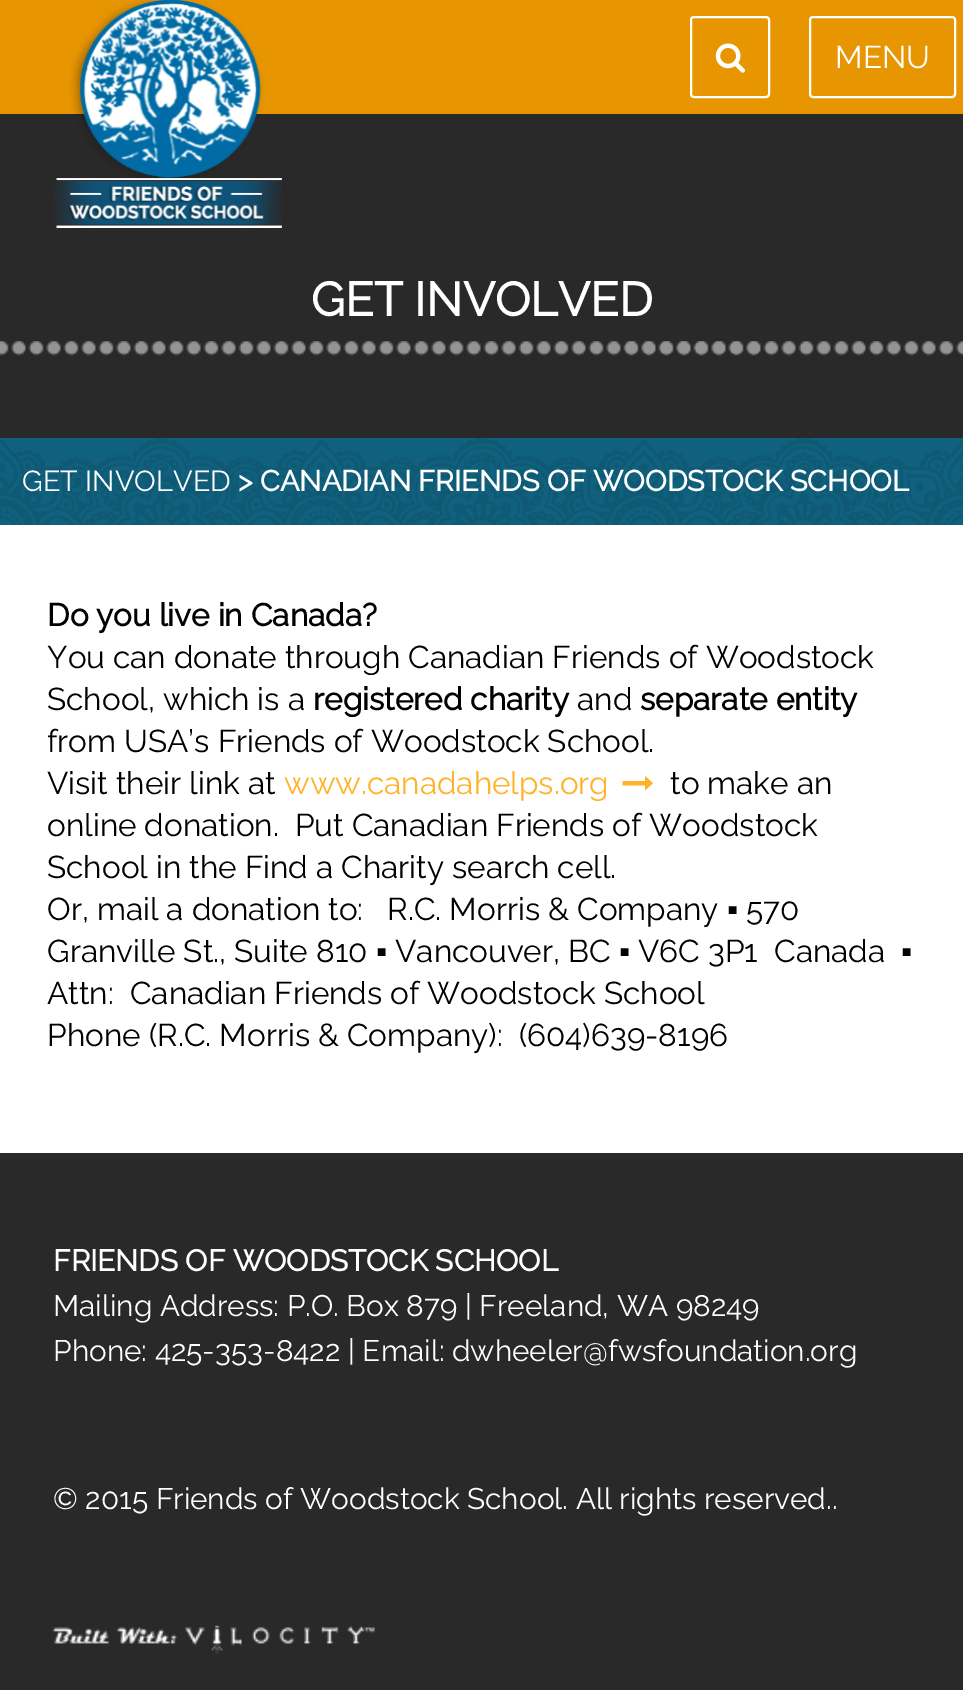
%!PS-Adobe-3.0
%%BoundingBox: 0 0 963 1690
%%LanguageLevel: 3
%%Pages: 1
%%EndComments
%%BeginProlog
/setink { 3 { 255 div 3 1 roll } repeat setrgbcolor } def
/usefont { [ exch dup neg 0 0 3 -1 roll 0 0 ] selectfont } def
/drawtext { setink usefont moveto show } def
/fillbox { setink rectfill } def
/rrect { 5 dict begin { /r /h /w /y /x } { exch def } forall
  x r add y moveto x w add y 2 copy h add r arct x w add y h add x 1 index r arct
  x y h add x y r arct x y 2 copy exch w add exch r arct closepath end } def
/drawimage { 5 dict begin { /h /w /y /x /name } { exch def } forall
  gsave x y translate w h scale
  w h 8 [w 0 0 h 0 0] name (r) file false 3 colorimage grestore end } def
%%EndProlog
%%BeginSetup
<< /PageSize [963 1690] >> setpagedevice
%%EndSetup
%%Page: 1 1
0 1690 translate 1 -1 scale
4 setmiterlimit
0 0 963 1690 41 41 41 fillbox
0 0 963 114 231 149 1 fillbox
(assets/img1.rgb) 53 0 229 228 drawimage
255 255 255 setink
2 setlinewidth
691 17 78 80 3 rrect stroke
(assets/img2.rgb) 715 43 30 30 drawimage
810 17 145 80 3 rrect stroke
(MENU) 835 68 /Raleway-Thin 31.5 255 255 255 drawtext
(GET INVOLVED) 311 316 /Raleway-Bold 47.25 255 255 255 drawtext
(assets/img3.rgb) 0 341 963 15 drawimage
0 438 963 87 16 97 126 fillbox
(assets/img4.rgb) 0 438 963 87 drawimage
(GET INVOLVED) 22 491 /Raleway-Thin 28.9 255 255 255 drawtext
(> CANADIAN FRIENDS OF WOODSTOCK SCHOOL) 238 491 /Raleway-Bold 28.9 255 255 255 drawtext
0 525 963 628 255 255 255 fillbox
(Do you live in Canada?) 47 626 /Raleway-Bold 31.5 0 0 0 drawtext
(You can donate through Canadian Friends of Woodstock) 47 668 /Raleway-Thin 31.5 0 0 0 drawtext
(School, which is a) 47 710 /Raleway-Thin 31.5 0 0 0 drawtext
(registered charity) 313 710 /Raleway-Bold 31.5 0 0 0 drawtext
(and) 577 710 /Raleway-Thin 31.5 0 0 0 drawtext
(separate entity) 640 710 /Raleway-Bold 31.5 0 0 0 drawtext
(from USA’s Friends of Woodstock School.) 47 752 /Raleway-Thin 31.5 0 0 0 drawtext
(Visit their link at) 47 794 /Raleway-Thin 31.5 0 0 0 drawtext
(www.canadahelps.org) 284 794 /Raleway-Thin 31.5 255 179 42 drawtext
(assets/img5.rgb) 622 776 31 14 drawimage
(to make an) 670 794 /Raleway-Thin 31.5 0 0 0 drawtext
(online donation.  Put Canadian Friends of Woodstock) 47 836 /Raleway-Thin 31.5 0 0 0 drawtext
(School in the Find a Charity search cell.) 47 878 /Raleway-Thin 31.5 0 0 0 drawtext
(Or, mail a donation to:   R.C. Morris & Company) 47 920 /Raleway-Thin 31.5 0 0 0 drawtext
(▪) 727 920 /LiberationSans-Regular 31.5 0 0 0 drawtext
(570) 746 920 /Raleway-Thin 31.5 0 0 0 drawtext
(Granville St., Suite 810) 47 962 /Raleway-Thin 31.5 0 0 0 drawtext
(▪) 376 962 /LiberationSans-Regular 31.5 0 0 0 drawtext
(Vancouver, BC) 395 962 /Raleway-Thin 31.5 0 0 0 drawtext
(▪) 619 962 /LiberationSans-Regular 31.5 0 0 0 drawtext
(V6C 3P1  Canada) 638 962 /Raleway-Thin 31.5 0 0 0 drawtext
(▪) 901 962 /LiberationSans-Regular 31.5 0 0 0 drawtext
(Attn:  Canadian Friends of Woodstock School) 47 1004 /Raleway-Thin 31.5 0 0 0 drawtext
(Phone \(R.C. Morris & Company\):  \(604\)639-8196) 47 1046 /Raleway-Thin 31.5 0 0 0 drawtext
(FRIENDS OF WOODSTOCK SCHOOL) 53 1271 /Raleway-Bold 29.75 255 255 255 drawtext
(Mailing Address: P.O. Box 879 | Freeland, WA 98249) 53 1316 /Raleway-Thin 29.75 255 255 255 drawtext
(Phone: 425-353-8422 | Email: dwheeler@fwsfoundation.org) 53 1361 /Raleway-Thin 29.75 255 255 255 drawtext
(© 2015 Friends of Woodstock School. All rights reserved..) 53 1509 /Raleway-Thin 29.75 255 255 255 drawtext
(assets/img6.rgb) 52 1625 323 29 drawimage
showpage
%%EOF
